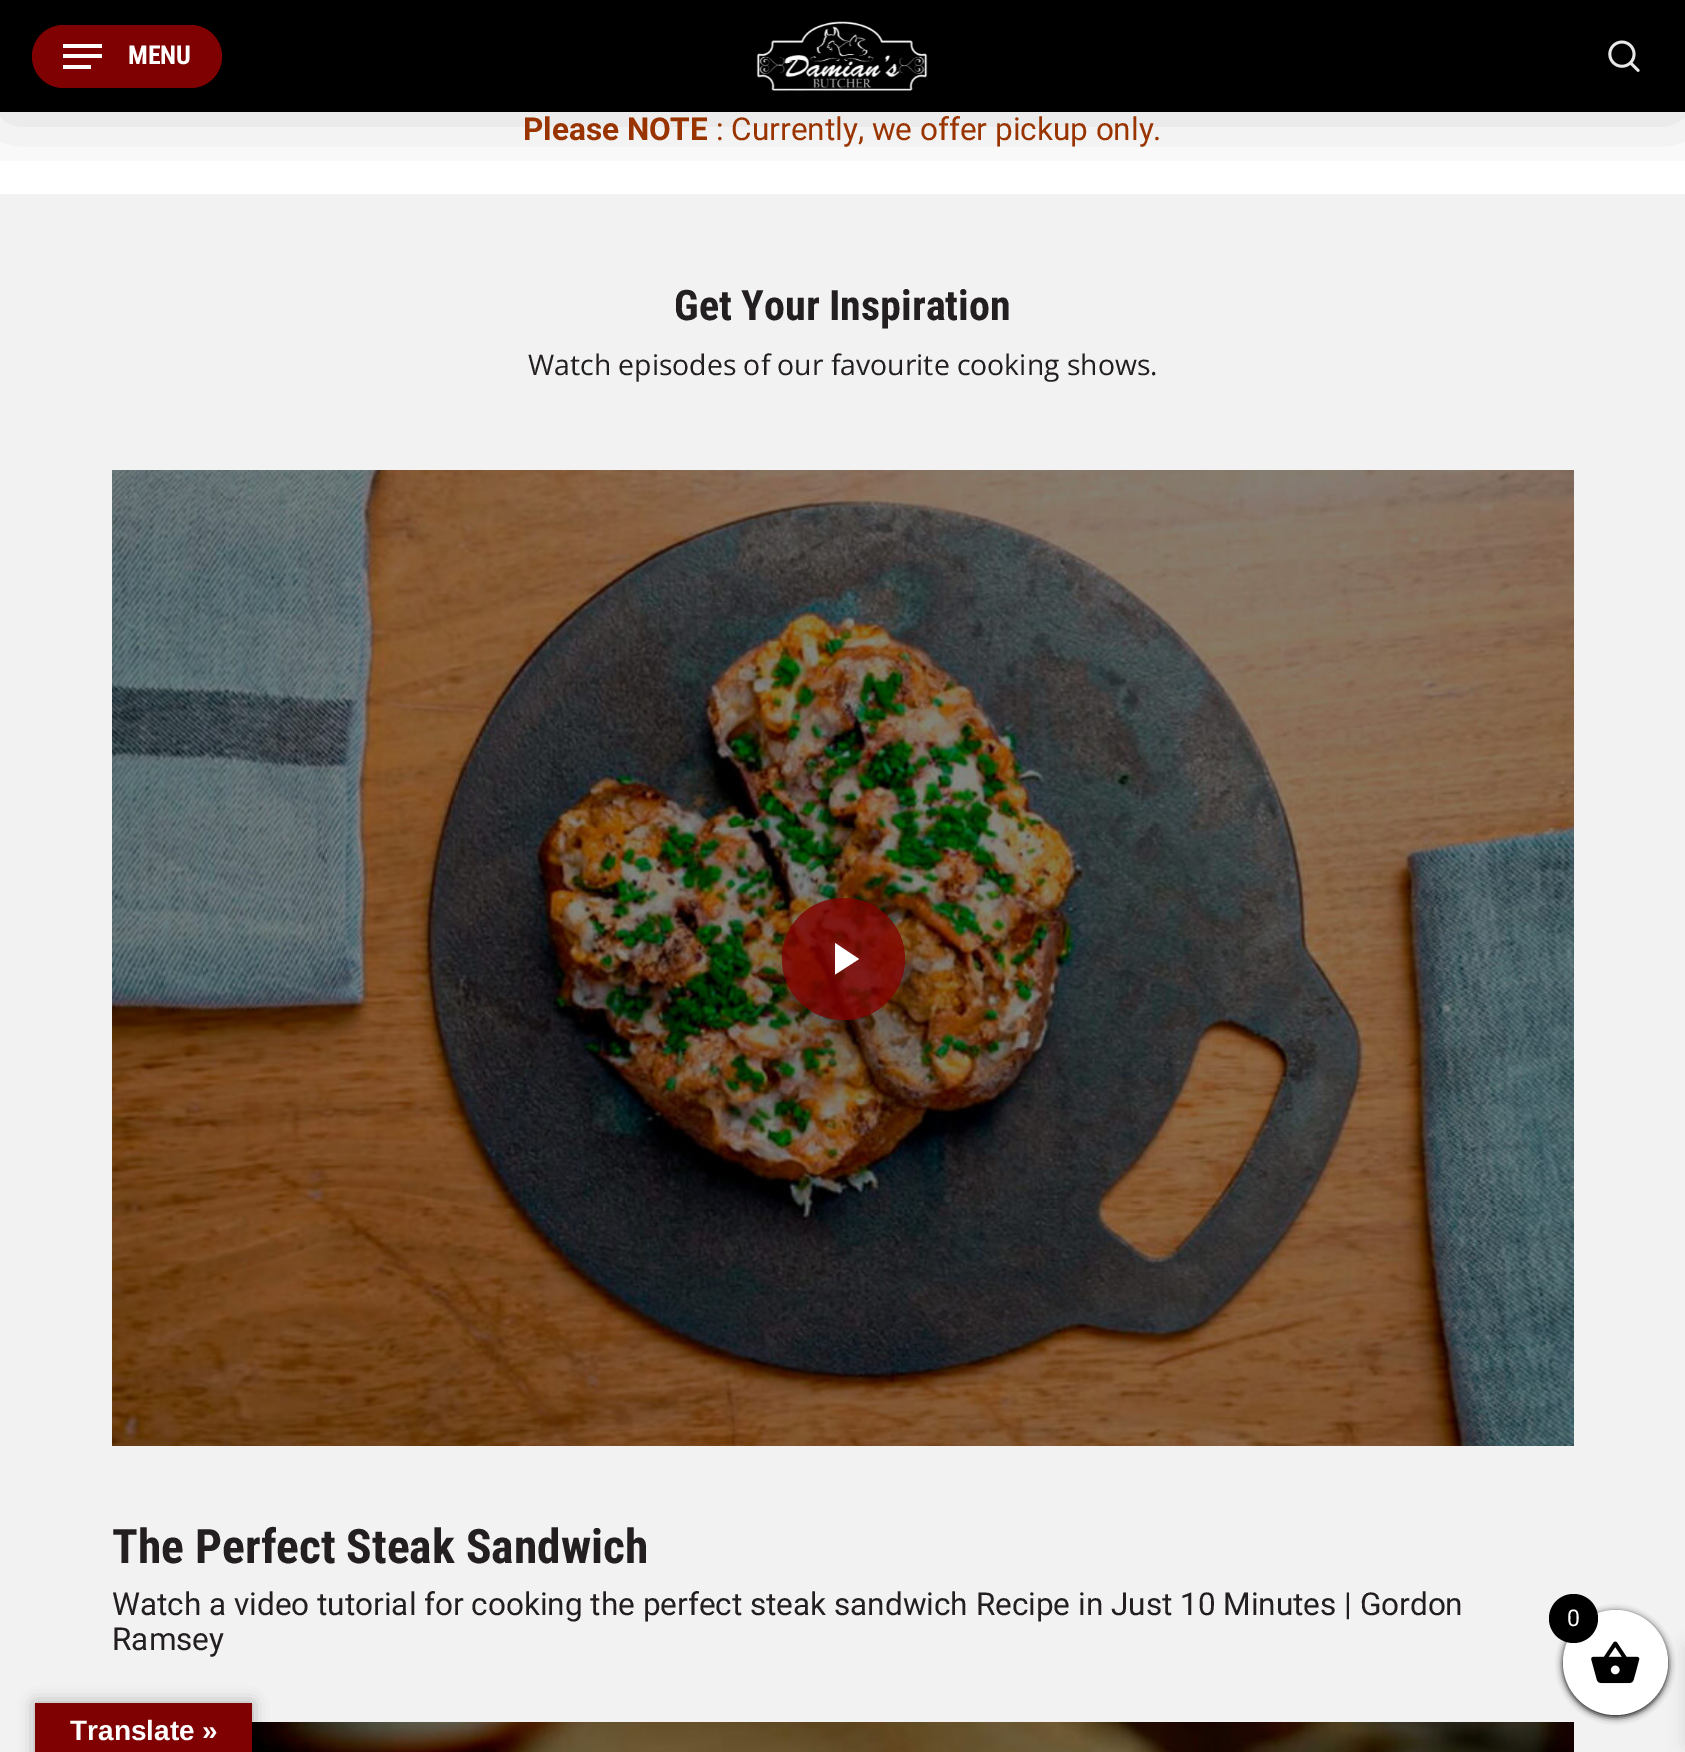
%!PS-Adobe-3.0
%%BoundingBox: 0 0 1685 1752
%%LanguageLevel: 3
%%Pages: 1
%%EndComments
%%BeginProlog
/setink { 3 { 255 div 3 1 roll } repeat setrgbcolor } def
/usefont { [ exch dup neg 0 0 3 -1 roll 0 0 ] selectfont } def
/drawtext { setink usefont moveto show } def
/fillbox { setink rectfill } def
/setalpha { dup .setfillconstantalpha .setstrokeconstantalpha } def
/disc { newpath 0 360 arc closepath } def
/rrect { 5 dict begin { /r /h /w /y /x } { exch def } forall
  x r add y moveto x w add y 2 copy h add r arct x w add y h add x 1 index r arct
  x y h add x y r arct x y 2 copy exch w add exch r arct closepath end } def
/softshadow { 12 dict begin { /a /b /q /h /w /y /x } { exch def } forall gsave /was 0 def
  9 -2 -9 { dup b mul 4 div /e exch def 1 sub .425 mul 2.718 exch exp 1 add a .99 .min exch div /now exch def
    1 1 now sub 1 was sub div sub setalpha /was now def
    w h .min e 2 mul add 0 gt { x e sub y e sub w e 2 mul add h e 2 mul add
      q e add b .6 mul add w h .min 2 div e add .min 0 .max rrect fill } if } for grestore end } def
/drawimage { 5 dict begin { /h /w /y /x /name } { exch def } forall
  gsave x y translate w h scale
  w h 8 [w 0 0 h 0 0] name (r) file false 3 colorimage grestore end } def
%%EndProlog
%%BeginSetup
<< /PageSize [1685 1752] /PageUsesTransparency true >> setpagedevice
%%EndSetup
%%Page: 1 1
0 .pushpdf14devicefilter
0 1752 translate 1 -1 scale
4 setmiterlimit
0 0 1685 1752 255 255 255 fillbox
0 0 1685 112 0 0 0 fillbox
0 194 1685 1558 242 242 242 fillbox
gsave
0 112 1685 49 rectclip
0 0 0 setink
0 5 1685 112 0 39.5 0.15 softshadow
grestore
128 1 1 setink
32 25 190 63 31.5 rrect fill
63 44 39 4 255 255 255 fillbox
63 65 28 4 255 255 255 fillbox
63 54 39 4 255 255 255 fillbox
(MENU) 128 64 /RobotoCondensed-Bold 26 255 255 255 drawtext
(assets/img1.rgb) 1608 40 32 32 drawimage
(assets/img2.rgb) 756 21 172 70 drawimage
(Please NOTE) 523 140 /Roboto-Bold 31.5 153 51 0 drawtext
(: Currently, we offer pickup only.) 716 140 /Roboto-Regular 31.5 153 51 0 drawtext
(Get Your Inspiration) 674 320 /RobotoCondensed-Bold 42 35 31 32 drawtext
(Watch episodes of our favourite cooking shows.) 528 375 /OpenSans-Regular 28.35 35 31 32 drawtext
(assets/img3.rgb) 112 470 1462 976 drawimage
gsave
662 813 moveto 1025 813 lineto 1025 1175 lineto 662 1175 lineto closepath 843 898 moveto 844 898 lineto 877.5 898 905 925.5 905 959 curveto 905 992.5 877.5 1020 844 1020 curveto 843 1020 lineto 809.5 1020 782 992.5 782 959 curveto 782 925.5 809.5 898 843 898 curveto closepath eoclip newpath
0 0 0 setink
782 933 123 122 61 39.5 0.25 softshadow
grestore
0.8 setalpha
128 1 1 setink
782 898 123 122 61 rrect fill
1 setalpha
255 255 255 setink
835 943 moveto 835 974.5 lineto 859 959 lineto closepath fill
(The Perfect Steak Sandwich) 112 1563 /RobotoCondensed-Bold 47.6 35 31 32 drawtext
(Watch a video tutorial for cooking the perfect steak sandwich Recipe in Just 10 Minutes | Gordon) 112 1615 /Roboto-Regular 31.5 35 31 32 drawtext
(Ramsey) 112 1650 /Roboto-Regular 31.5 35 31 32 drawtext
(assets/img4.rgb) 252 1722 1322 30 drawimage
0 0 0 setink
1563 1612 105 105 52.5 3.5 1 softshadow
1685 1647 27 98 0 9 0.1 softshadow
255 255 255 setink
1615.5 1662.5 52.5 disc fill
(assets/img5.rgb) 1591 1641 49 43 drawimage
0 0 0 setink
1573.5 1618.5 24.5 disc fill
(0) 1567 1626 /Roboto-Regular 23 255 255 255 drawtext
0 0 0 setink
35 1703 217 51 0 8 0.3 softshadow
35 1703 217 49 128 1 1 fillbox
(Translate ») 70 1740 /LiberationSans-Bold 28 255 255 255 drawtext
.poppdf14devicefilter showpage
%%EOF
